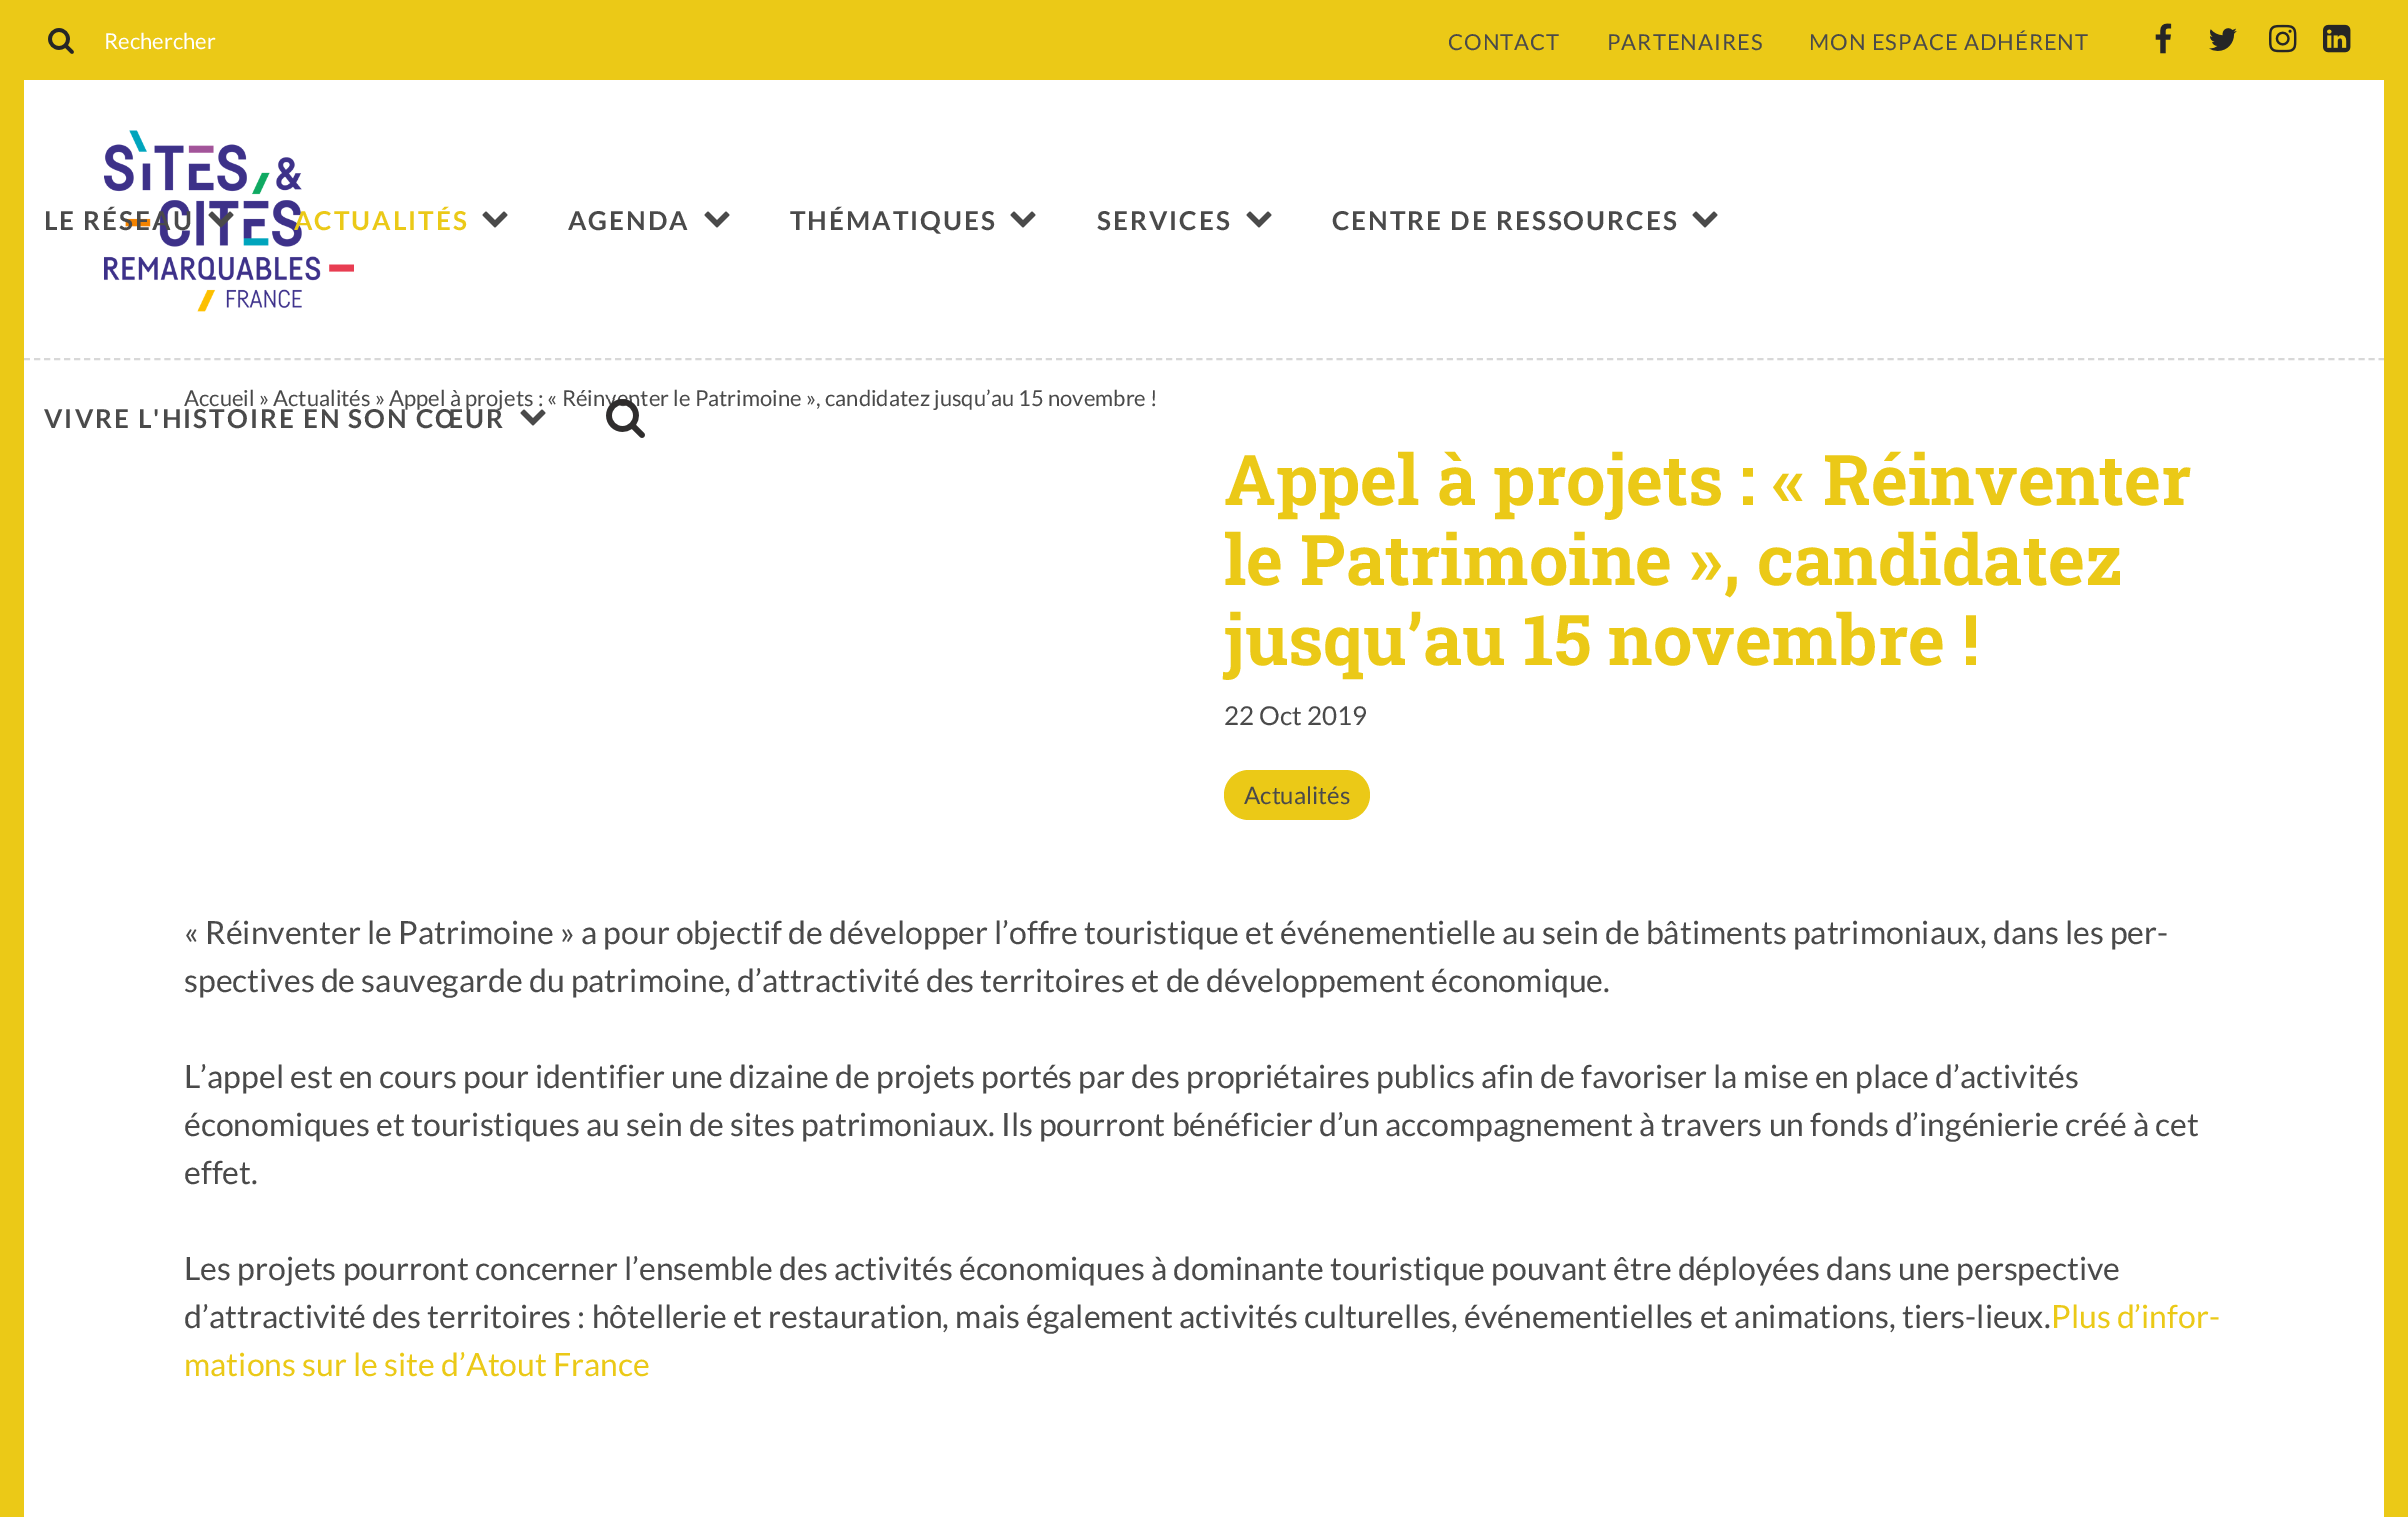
%!PS-Adobe-3.0
%%BoundingBox: 0 0 2408 1517
%%LanguageLevel: 3
%%Pages: 1
%%EndComments
%%BeginProlog
/setink { 3 { 255 div 3 1 roll } repeat setrgbcolor } def
/usefont { [ exch dup neg 0 0 3 -1 roll 0 0 ] selectfont } def
/drawtext { setink usefont moveto show } def
/fillbox { setink rectfill } def
/rrect { 5 dict begin { /r /h /w /y /x } { exch def } forall
  x r add y moveto x w add y 2 copy h add r arct x w add y h add x 1 index r arct
  x y h add x y r arct x y 2 copy exch w add exch r arct closepath end } def
/drawimage { 5 dict begin { /h /w /y /x /name } { exch def } forall
  gsave x y translate w h scale
  w h 8 [w 0 0 h 0 0] name (r) file false 3 colorimage grestore end } def
%%EndProlog
%%BeginSetup
<< /PageSize [2408 1517] >> setpagedevice
%%EndSetup
%%Page: 1 1
0 1517 translate 1 -1 scale
4 setmiterlimit
0 0 2408 1517 255 255 255 fillbox
2384 0 24 1517 235 201 23 fillbox
0 0 24 1517 235 201 23 fillbox
24 0 2360 80 235 201 23 fillbox
(assets/img1.rgb) 48 28 26 26 drawimage
(Rechercher) 104 49 /Lato-Regular 22 255 255 255 drawtext
74 74 74 setink
1448 50 moveto 1 0 (CONTACT) ashow
1607 50 moveto 1 0 (PARTENAIRES) ashow
1809 50 moveto 1 0 (MON ESPACE ADHÉRENT) ashow
(assets/img2.rgb) 2155 23 17 31 drawimage
(assets/img3.rgb) 2209 28 28 23 drawimage
(assets/img4.rgb) 2269 24 28 29 drawimage
(assets/img5.rgb) 2323 24 28 29 drawimage
216 216 216 setink
2 setlinewidth
[6 4.02] 0 setdash
24 359 moveto 2384 359 lineto stroke
(assets/img6.rgb) 104 130 250 182 drawimage
/Lato-Bold 26 usefont
74 74 74 setink
44 230 moveto 2 0 (LE RÉSEAU) ashow
(assets/img7.rgb) 208 211 26 17 drawimage
235 201 23 setink
294 230 moveto 2 0 (ACTUALITÉS) ashow
(assets/img8.rgb) 482 211 26 17 drawimage
74 74 74 setink
568 230 moveto 2 0 (AGENDA) ashow
(assets/img8.rgb) 704 211 26 17 drawimage
790 230 moveto 2 0 (THÉMATIQUES) ashow
(assets/img8.rgb) 1010 211 26 17 drawimage
1097 230 moveto 2 0 (SERVICES) ashow
(assets/img8.rgb) 1246 211 26 17 drawimage
1332 230 moveto 2 0 (CENTRE DE RESSOURCES) ashow
(assets/img8.rgb) 1692 211 26 17 drawimage
44 428 moveto 2 0 (VIVRE L'HISTOIRE EN SON CŒUR) ashow
(Accueil » Actualités » Appel à projets : « Réinventer le Patrimoine », candidatez jusqu’au 15 novembre !) 184 406 /Lato-Regular 22 74 74 74 drawtext
(assets/img8.rgb) 520 409 26 17 drawimage
(assets/img9.rgb) 606 399 39 39 drawimage
(Appel à projets : « Réinventer) 1224 505 /RobotoSlab-Bold 70 235 201 23 drawtext
(le Patrimoine », candidatez) 1224 585 /RobotoSlab-Bold 70 235 201 23 drawtext
(jusqu’au 15 novembre !) 1224 665 /RobotoSlab-Bold 70 235 201 23 drawtext
(22 Oct 2019) 1224 725 /Lato-Regular 26 74 74 74 drawtext
235 201 23 setink
1224 770 146 50 25 rrect fill
(Actualités) 1244 804 /Lato-Regular 24 74 74 74 drawtext
(« Réinventer le Patrimoine » a pour objectif de développer l’offre touristique et événementielle au sein de bâtiments patrimoniaux, dans les per-) 184 944 /Lato-Regular 32 74 74 74 drawtext
(spectives de sauvegarde du patrimoine, d’attractivité des territoires et de développement économique.) 184 992 /Lato-Regular 32 74 74 74 drawtext
(L’appel est en cours pour identifier une dizaine de projets portés par des propriétaires publics afin de favoriser la mise en place d’activités) 184 1088 /Lato-Regular 32 74 74 74 drawtext
(économiques et touristiques au sein de sites patrimoniaux. Ils pourront bénéficier d’un accompagnement à travers un fonds d’ingénierie créé à cet) 184 1136 /Lato-Regular 32 74 74 74 drawtext
(effet.) 184 1184 /Lato-Regular 32 74 74 74 drawtext
(Les projets pourront concerner l’ensemble des activités économiques à dominante touristique pouvant être déployées dans une perspective) 184 1280 /Lato-Regular 32 74 74 74 drawtext
(d’attractivité des territoires : hôtellerie et restauration, mais également activités culturelles, événementielles et animations, tiers-lieux.) 184 1328 /Lato-Regular 32 74 74 74 drawtext
(Plus d’infor-) 2051 1328 /Lato-Regular 32 235 201 23 drawtext
(mations sur le site d’Atout France) 184 1376 /Lato-Regular 32 235 201 23 drawtext
showpage
%%EOF
